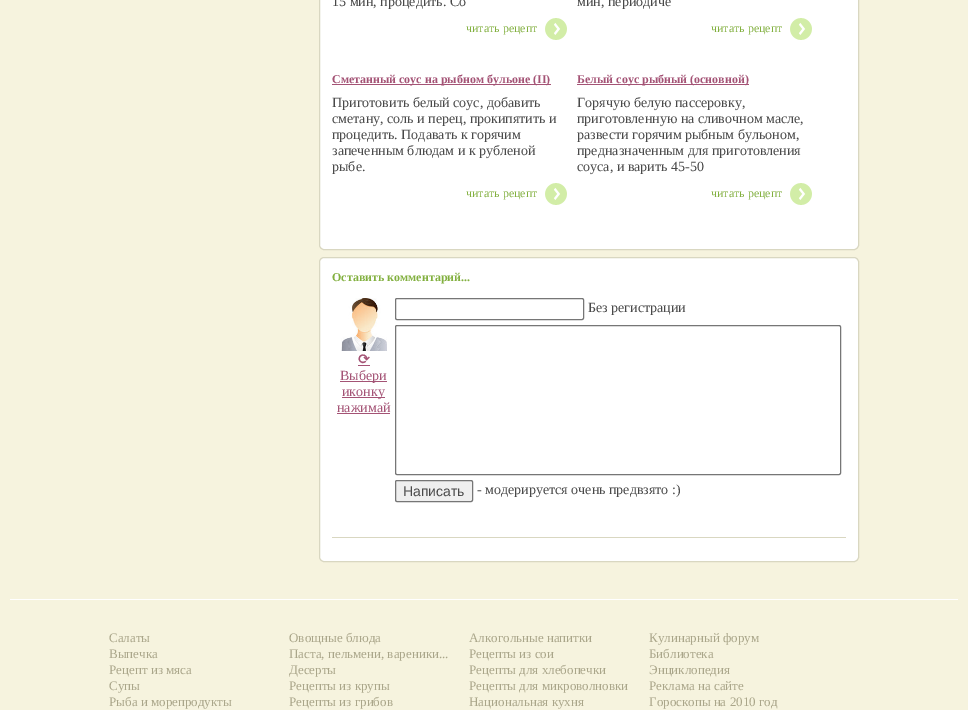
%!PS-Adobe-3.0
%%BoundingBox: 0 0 968 710
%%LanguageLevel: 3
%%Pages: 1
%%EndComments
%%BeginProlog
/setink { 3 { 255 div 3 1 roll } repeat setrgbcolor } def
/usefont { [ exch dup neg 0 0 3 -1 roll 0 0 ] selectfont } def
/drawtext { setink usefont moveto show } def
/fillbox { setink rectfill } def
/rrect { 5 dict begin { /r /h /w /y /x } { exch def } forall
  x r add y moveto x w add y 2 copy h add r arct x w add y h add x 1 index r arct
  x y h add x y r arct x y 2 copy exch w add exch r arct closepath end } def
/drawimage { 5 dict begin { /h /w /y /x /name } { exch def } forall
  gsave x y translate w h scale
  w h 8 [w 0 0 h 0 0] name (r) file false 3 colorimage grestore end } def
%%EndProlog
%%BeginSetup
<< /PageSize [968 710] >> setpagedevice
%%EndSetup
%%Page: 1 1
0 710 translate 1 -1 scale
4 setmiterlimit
0 0 968 710 246 243 222 fillbox
255 255 255 setink
319.5 -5.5 539 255 4.5 rrect gsave fill grestore
217 215 193 setink
stroke
(15 мин, процедить. Со) 332 6 /LiberationSerif-Regular 14 73 73 73 drawtext
(читать рецепт) 466 32 /LiberationSerif-Regular 12 130 176 63 drawtext
(assets/img1.rgb) 545 18 22 22 drawimage
(мин, периодиче) 577 6 /LiberationSerif-Regular 14 73 73 73 drawtext
(читать рецепт) 711 32 /LiberationSerif-Regular 12 130 176 63 drawtext
(assets/img1.rgb) 790 18 22 22 drawimage
332 84 219 1 164 83 117 fillbox
(Сметанный соус на рыбном бульоне \(II\)) 332 83 /LiberationSerif-Bold 12 164 83 117 drawtext
(Приготовить белый соус, добавить) 332 107 /LiberationSerif-Regular 14 73 73 73 drawtext
(сметану, соль и перец, прокипятить и) 332 123 /LiberationSerif-Regular 14 73 73 73 drawtext
(процедить. Подавать к горячим) 332 139 /LiberationSerif-Regular 14 73 73 73 drawtext
(запеченным блюдам и к рубленой) 332 155 /LiberationSerif-Regular 14 73 73 73 drawtext
(рыбе.) 332 171 /LiberationSerif-Regular 14 73 73 73 drawtext
(читать рецепт) 466 197 /LiberationSerif-Regular 12 130 176 63 drawtext
(assets/img1.rgb) 545 183 22 22 drawimage
577 84 172 1 164 83 117 fillbox
(Белый соус рыбный \(основной\)) 577 83 /LiberationSerif-Bold 12 164 83 117 drawtext
(Горячую белую пассеровку,) 577 107 /LiberationSerif-Regular 14 73 73 73 drawtext
(приготовленную на сливочном масле,) 577 123 /LiberationSerif-Regular 14 73 73 73 drawtext
(развести горячим рыбным бульоном,) 577 139 /LiberationSerif-Regular 14 73 73 73 drawtext
(предназначенным для приготовления) 577 155 /LiberationSerif-Regular 14 73 73 73 drawtext
(соуса, и варить 45-50) 577 171 /LiberationSerif-Regular 14 73 73 73 drawtext
(читать рецепт) 711 197 /LiberationSerif-Regular 12 130 176 63 drawtext
(assets/img1.rgb) 790 183 22 22 drawimage
255 255 255 setink
319.5 257.5 539 304 4.5 rrect gsave fill grestore
217 215 193 setink
stroke
(Оставить комментарий...) 332 281 /LiberationSerif-Bold 12 130 176 63 drawtext
118 118 118 setink
395.5 298.5 188 21 1.5 rrect stroke
(Без регистрации) 588 312 /LiberationSerif-Regular 14 73 73 73 drawtext
(assets/img2.rgb) 341 298 46 53 drawimage
(⟳) 358 364 /DejaVuSans-Bold 14 164 83 117 drawtext
358 365 12 1 164 83 117 fillbox
340 381 47 1 164 83 117 fillbox
(Выбери) 340 380 /LiberationSerif-Regular 14 164 83 117 drawtext
342 397 43 1 164 83 117 fillbox
(иконку) 342 396 /LiberationSerif-Regular 14 164 83 117 drawtext
(нажимай) 337 412 /LiberationSerif-Regular 14 164 83 117 drawtext
337 413 53 1 164 83 117 fillbox
118 118 118 setink
395.5 325.5 445 149 1.5 rrect stroke
239 239 239 setink
395.5 480.5 77 21 1.5 rrect gsave fill grestore
118 118 118 setink
stroke
(Написать) 403 496 /LiberationSans-Regular 14 73 73 73 drawtext
(- модерируется очень предвзято :\)) 477 494 /LiberationSerif-Regular 14 73 73 73 drawtext
332 537 514 1 217 215 193 fillbox
10 599 948 1 255 255 255 fillbox
(Салаты) 109 642 /LiberationSerif-Regular 13 170 166 138 drawtext
(Выпечка) 109 658 /LiberationSerif-Regular 13 170 166 138 drawtext
(Рецепт из мяса) 109 674 /LiberationSerif-Regular 13 170 166 138 drawtext
(Супы) 109 690 /LiberationSerif-Regular 13 170 166 138 drawtext
(Рыба и морепродукты) 109 706 /LiberationSerif-Regular 13 170 166 138 drawtext
(Овощные блюда) 289 642 /LiberationSerif-Regular 13 170 166 138 drawtext
(Паста, пельмени, вареники...) 289 658 /LiberationSerif-Regular 13 170 166 138 drawtext
(Десерты) 289 674 /LiberationSerif-Regular 13 170 166 138 drawtext
(Рецепты из крупы) 289 690 /LiberationSerif-Regular 13 170 166 138 drawtext
(Рецепты из грибов) 289 706 /LiberationSerif-Regular 13 170 166 138 drawtext
(Алкогольные напитки) 469 642 /LiberationSerif-Regular 13 170 166 138 drawtext
(Рецепты из сои) 469 658 /LiberationSerif-Regular 13 170 166 138 drawtext
(Рецепты для хлебопечки) 469 674 /LiberationSerif-Regular 13 170 166 138 drawtext
(Рецепты для микроволновки) 469 690 /LiberationSerif-Regular 13 170 166 138 drawtext
(Национальная кухня) 469 706 /LiberationSerif-Regular 13 170 166 138 drawtext
(Кулинарный форум) 649 642 /LiberationSerif-Regular 13 170 166 138 drawtext
(Библиотека) 649 658 /LiberationSerif-Regular 13 170 166 138 drawtext
(Энциклопедия) 649 674 /LiberationSerif-Regular 13 170 166 138 drawtext
(Реклама на сайте) 649 690 /LiberationSerif-Regular 13 170 166 138 drawtext
(Гороскопы на 2010 год) 649 706 /LiberationSerif-Regular 13 170 166 138 drawtext
showpage
%%EOF
